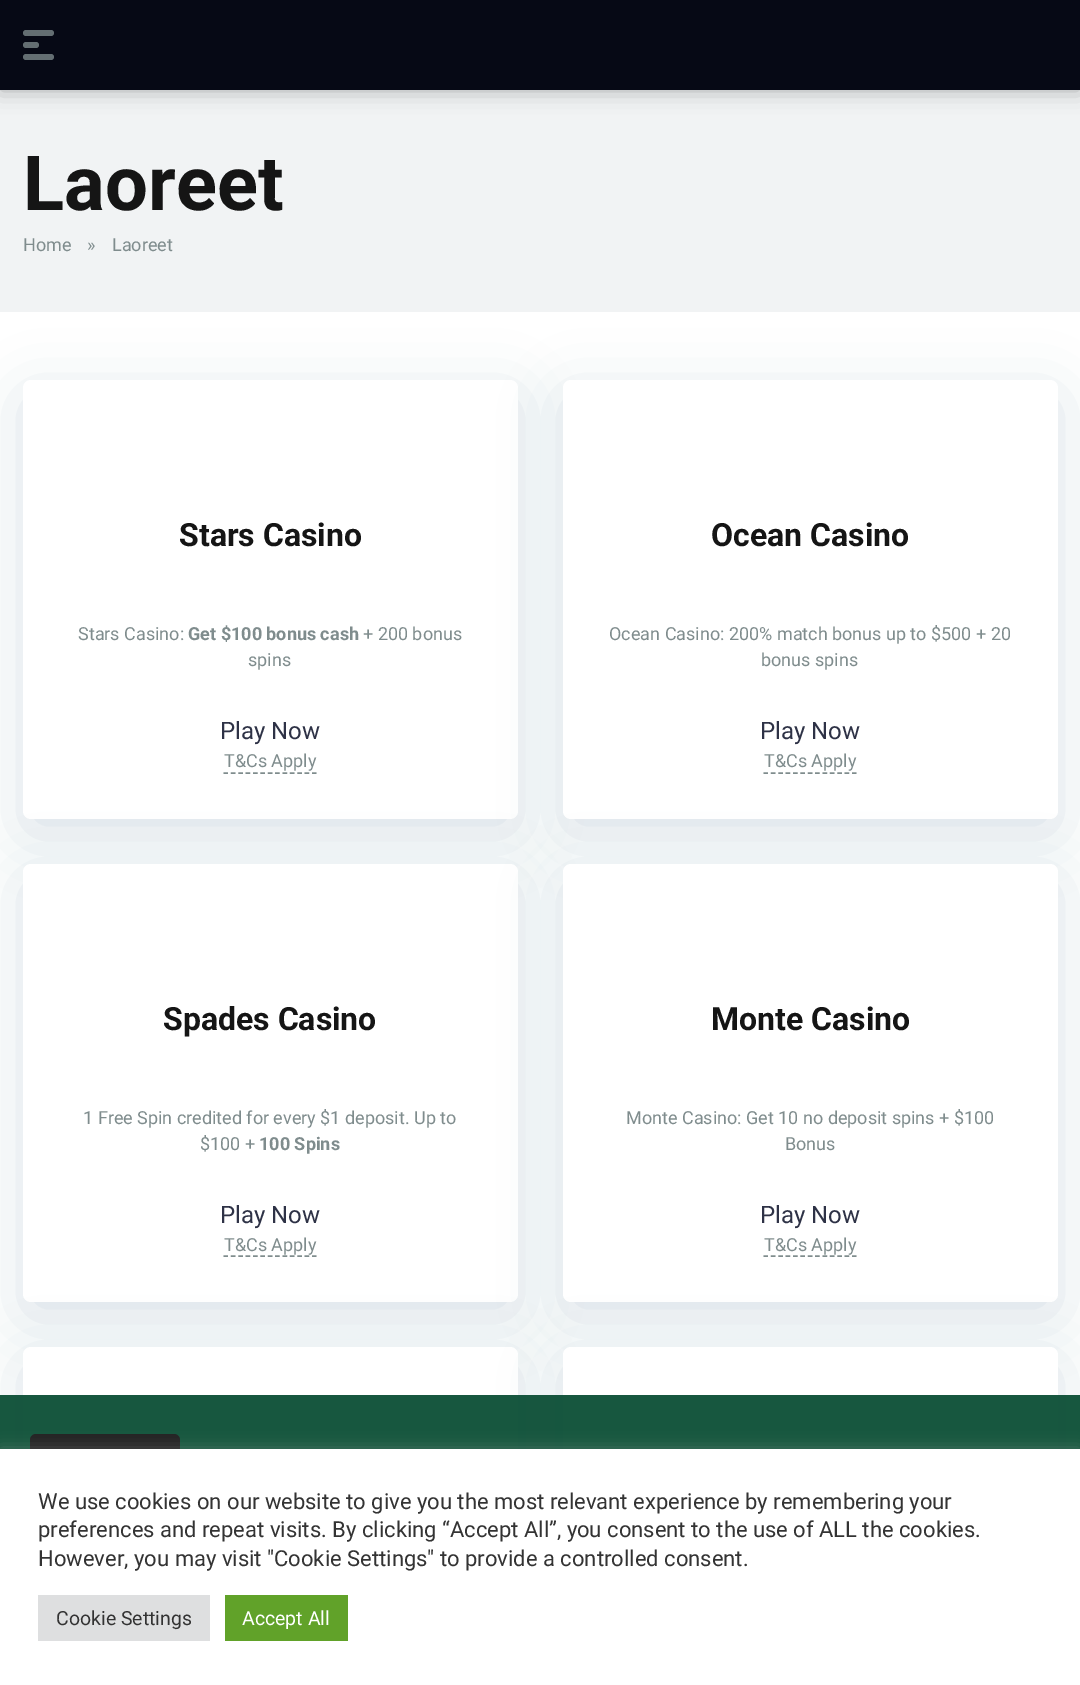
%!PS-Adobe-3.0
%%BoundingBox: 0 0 1080 1685
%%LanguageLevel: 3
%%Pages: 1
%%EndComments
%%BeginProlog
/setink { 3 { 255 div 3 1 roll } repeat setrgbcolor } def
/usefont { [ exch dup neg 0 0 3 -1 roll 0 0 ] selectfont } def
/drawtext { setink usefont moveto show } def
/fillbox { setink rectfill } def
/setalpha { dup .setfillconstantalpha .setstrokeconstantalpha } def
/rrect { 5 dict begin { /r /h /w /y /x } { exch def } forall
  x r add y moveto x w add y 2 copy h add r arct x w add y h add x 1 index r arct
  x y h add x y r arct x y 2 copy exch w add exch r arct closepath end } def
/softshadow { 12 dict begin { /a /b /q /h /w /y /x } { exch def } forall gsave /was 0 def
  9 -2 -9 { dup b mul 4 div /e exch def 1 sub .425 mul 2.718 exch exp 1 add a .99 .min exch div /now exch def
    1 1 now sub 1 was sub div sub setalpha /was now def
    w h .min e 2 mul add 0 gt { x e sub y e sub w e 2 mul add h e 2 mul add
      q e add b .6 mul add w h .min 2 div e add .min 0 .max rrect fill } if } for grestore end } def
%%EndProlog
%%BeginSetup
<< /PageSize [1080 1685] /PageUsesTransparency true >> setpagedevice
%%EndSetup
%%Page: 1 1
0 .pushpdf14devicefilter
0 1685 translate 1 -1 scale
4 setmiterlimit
0 0 1080 1685 255 255 255 fillbox
0 90 1080 222 241 243 244 fillbox
0 0 0 setink
0 0 1080 90 0 11 0.3 softshadow
0 0 1080 90 6 9 21 fillbox
99 110 114 setink
23 30 31 6 3 rrect fill
23 42 16 6 3 rrect fill
23 54 31 6 3 rrect fill
(Laoreet) 23 210 /Roboto-Bold 76 21 21 21 drawtext
(Home) 23 251 /Roboto-Regular 18 127 140 141 drawtext
(») 87 251 /Roboto-Regular 18 127 140 141 drawtext
(Laoreet) 112 251 /Roboto-Regular 18 127 140 141 drawtext
109 141 173 setink
23 395 495 439 8 30 0.25 softshadow
255 255 255 setink
23 380 495 439 8 rrect fill
(Stars Casino) 179 546 /Roboto-Bold 32 21 21 21 drawtext
(Stars Casino:) 78 640 /Roboto-Regular 18 127 140 141 drawtext
(Get $100 bonus cash) 188 640 /Roboto-Bold 18 127 140 141 drawtext
(+ 200 bonus) 363 640 /Roboto-Regular 18 127 140 141 drawtext
(spins) 248 666 /Roboto-Regular 18 127 140 141 drawtext
(Play Now) 220 739 /Roboto-Regular 24 46 50 70 drawtext
(T&Cs Apply) 224 767 /Roboto-Regular 18 127 140 141 drawtext
1.5 setlinewidth
[4.5 2.88] 0 setdash
223.5 773 moveto 316.5 773 lineto stroke
109 141 173 setink
563 395 495 439 8 30 0.25 softshadow
255 255 255 setink
563 380 495 439 8 rrect fill
(Ocean Casino) 711 546 /Roboto-Bold 32 21 21 21 drawtext
(Ocean Casino: 200% match bonus up to $500 + 20) 609 640 /Roboto-Regular 18 127 140 141 drawtext
(bonus spins) 761 666 /Roboto-Regular 18 127 140 141 drawtext
(Play Now) 760 739 /Roboto-Regular 24 46 50 70 drawtext
(T&Cs Apply) 764 767 /Roboto-Regular 18 127 140 141 drawtext
763.5 773 moveto 856.5 773 lineto stroke
109 141 173 setink
23 879 495 438 8 30 0.25 softshadow
255 255 255 setink
23 864 495 438 8 rrect fill
(Spades Casino) 163 1030 /Roboto-Bold 32 21 21 21 drawtext
(1 Free Spin credited for every $1 deposit. Up to) 83 1124 /Roboto-Regular 18 127 140 141 drawtext
($100 +) 200 1150 /Roboto-Regular 18 127 140 141 drawtext
(100 Spins) 259 1150 /Roboto-Bold 18 127 140 141 drawtext
(Play Now) 220 1223 /Roboto-Regular 24 46 50 70 drawtext
(T&Cs Apply) 224 1251 /Roboto-Regular 18 127 140 141 drawtext
223.5 1256 moveto 316.5 1256 lineto stroke
109 141 173 setink
563 879 495 438 8 30 0.25 softshadow
255 255 255 setink
563 864 495 438 8 rrect fill
(Monte Casino) 711 1030 /Roboto-Bold 32 21 21 21 drawtext
(Monte Casino: Get 10 no deposit spins + $100) 626 1124 /Roboto-Regular 18 127 140 141 drawtext
(Bonus) 785 1150 /Roboto-Regular 18 127 140 141 drawtext
(Play Now) 760 1223 /Roboto-Regular 24 46 50 70 drawtext
(T&Cs Apply) 764 1251 /Roboto-Regular 18 127 140 141 drawtext
763.5 1256 moveto 856.5 1256 lineto stroke
109 141 173 setink
23 1362 495 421 8 30 0.25 softshadow
255 255 255 setink
23 1347 495 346 8 rrect fill
109 141 173 setink
563 1362 495 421 8 30 0.25 softshadow
255 255 255 setink
563 1347 495 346 8 rrect fill
0.95 setalpha
0 1395 1080 54 11 78 53 fillbox
1 setalpha
35 35 35 setink
30 1434 150 120 6 rrect fill
172 171 171 setink
0 1448 1080 237 0 7.5 0.3 softshadow
0 1449 1080 236 255 255 255 fillbox
(We use cookies on our website to give you the most relevant experience by remembering your) 38 1509 /Roboto-Regular 22 51 51 51 drawtext
(preferences and repeat visits. By clicking “Accept All”, you consent to the use of ALL the cookies.) 38 1537 /Roboto-Regular 22 51 51 51 drawtext
(However, you may visit "Cookie Settings" to provide a controlled consent.) 38 1566 /Roboto-Regular 22 51 51 51 drawtext
38 1595 172 46 222 223 224 fillbox
(Cookie Settings) 56 1625 /Roboto-Regular 19.5 51 51 51 drawtext
225 1595 123 46 97 162 41 fillbox
(Accept All) 242 1625 /Roboto-Regular 19.5 255 255 255 drawtext
.poppdf14devicefilter showpage
%%EOF
